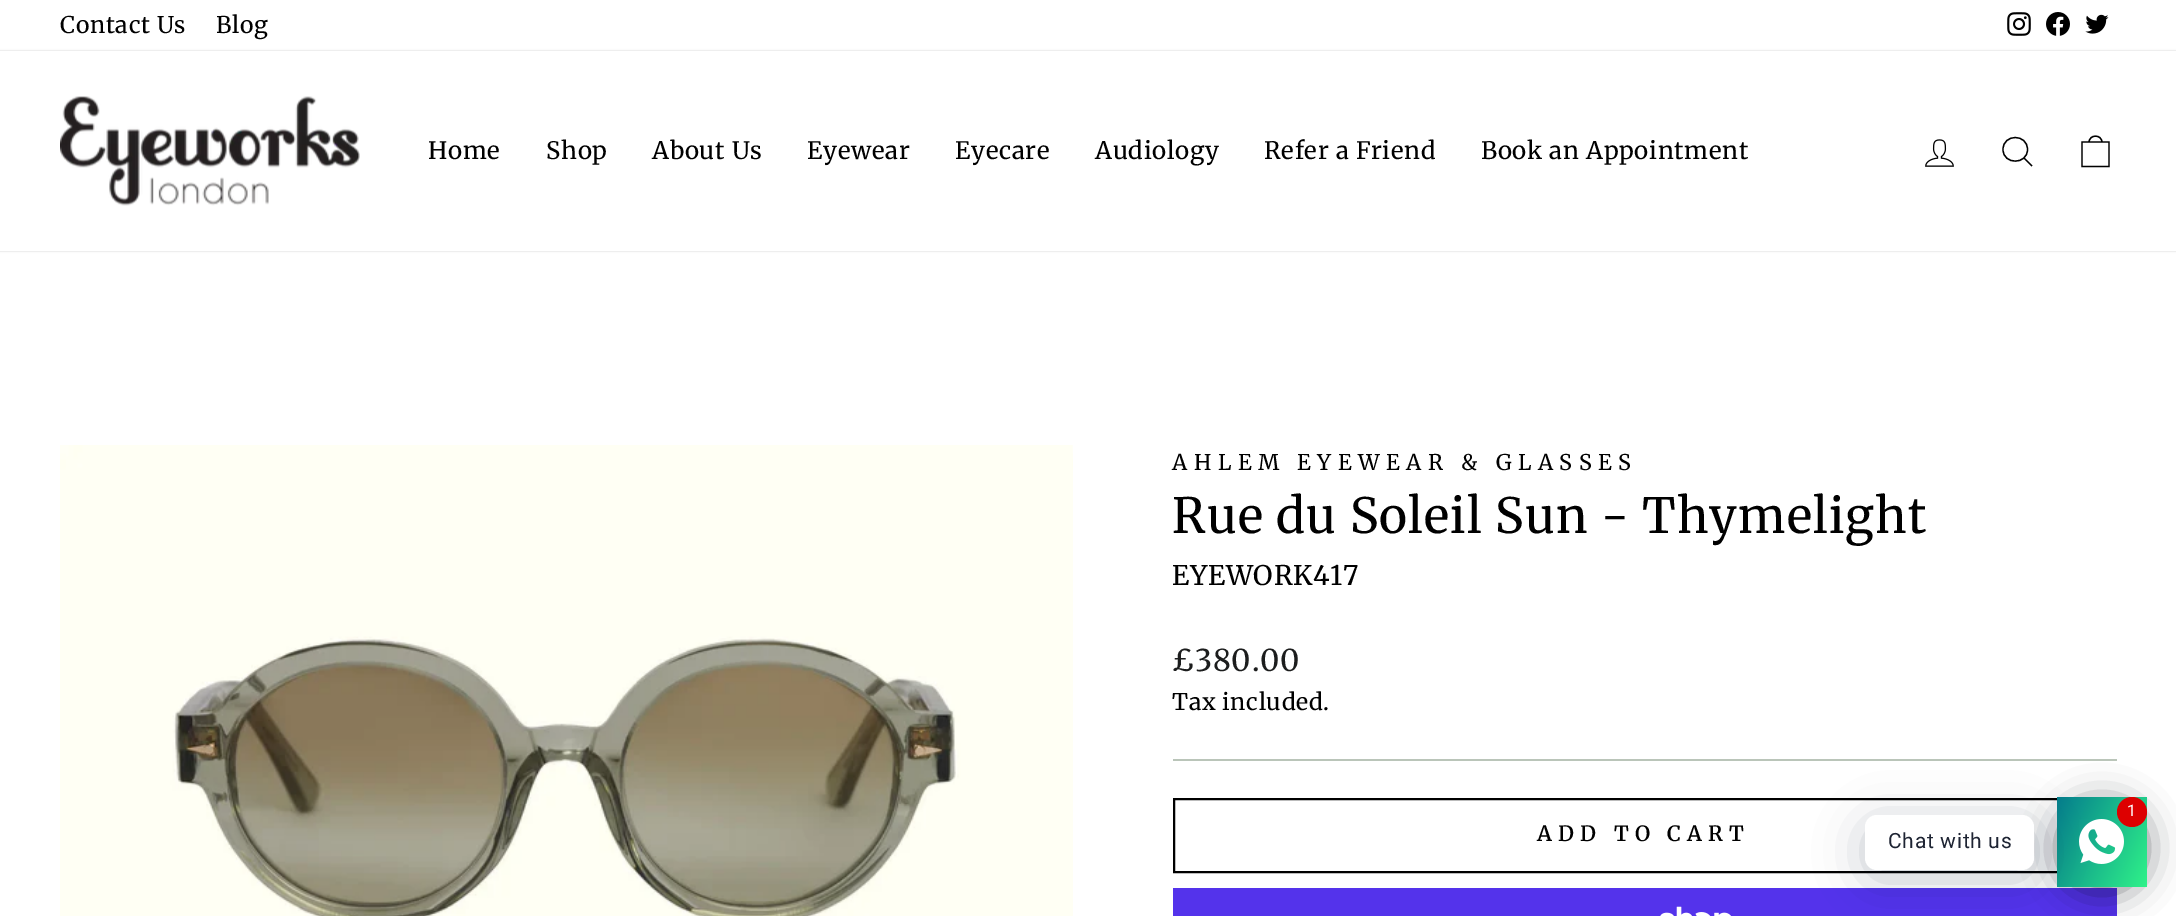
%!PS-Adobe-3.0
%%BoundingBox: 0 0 2176 916
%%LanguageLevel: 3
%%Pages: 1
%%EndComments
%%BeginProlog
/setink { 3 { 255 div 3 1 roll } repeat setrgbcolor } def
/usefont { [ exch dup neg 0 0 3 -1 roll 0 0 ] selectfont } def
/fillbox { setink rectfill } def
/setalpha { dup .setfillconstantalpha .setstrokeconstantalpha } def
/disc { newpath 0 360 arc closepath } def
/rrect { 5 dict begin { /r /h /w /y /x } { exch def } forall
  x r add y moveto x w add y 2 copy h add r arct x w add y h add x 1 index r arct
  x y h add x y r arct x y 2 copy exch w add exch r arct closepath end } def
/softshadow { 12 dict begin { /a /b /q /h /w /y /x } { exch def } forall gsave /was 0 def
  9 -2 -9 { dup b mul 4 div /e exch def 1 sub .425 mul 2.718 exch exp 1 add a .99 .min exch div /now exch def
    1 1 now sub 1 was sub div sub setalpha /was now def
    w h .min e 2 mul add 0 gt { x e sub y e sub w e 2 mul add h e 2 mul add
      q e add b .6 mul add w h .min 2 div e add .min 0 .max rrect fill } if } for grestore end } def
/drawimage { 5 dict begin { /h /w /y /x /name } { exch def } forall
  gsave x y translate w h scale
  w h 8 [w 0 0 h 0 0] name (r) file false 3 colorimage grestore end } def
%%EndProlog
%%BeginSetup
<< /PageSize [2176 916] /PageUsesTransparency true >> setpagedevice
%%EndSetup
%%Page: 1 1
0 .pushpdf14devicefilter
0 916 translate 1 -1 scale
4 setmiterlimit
0 0 2176 916 255 255 255 fillbox
/Merriweather-Regular 23 usefont
0 0 0 setink
60 33 moveto 0.7 0 (Contact Us) ashow
216 33 moveto 0.7 0 (Blog) ashow
(assets/img1.rgb) 2007 12 24 24 drawimage
(assets/img2.rgb) 2046 12 24 24 drawimage
(assets/img3.rgb) 2085 14 24 20 drawimage
0 51 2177 200 0 1 0.2 softshadow
0 51 2176 200 255 255 255 fillbox
(assets/img4.rgb) 60 96 300 110 drawimage
/Merriweather-Regular 24 usefont
0 0 0 setink
428 159 moveto 0.7 0 (Home) ashow
546 159 moveto 0.7 0 (Shop) ashow
652 159 moveto 0.7 0 (About Us) ashow
807 159 moveto 0.7 0 (Eyewear) ashow
955 159 moveto 0.7 0 (Eyecare) ashow
1095 159 moveto 0.7 0 (Audiology) ashow
1264 159 moveto 0.7 0 (Refer a Friend) ashow
1481 159 moveto 0.7 0 (Book an Appointment) ashow
(assets/img5.rgb) 1925 139 29 28 drawimage
1.3 setlinewidth
2027.5 149.5 moveto 2027.5 165 2003 165 2003 149.5 curveto 2003 133.5 2027.5 133.5 2027.5 149.5 curveto closepath 2032 166 moveto 2024 158 lineto stroke
2082 142 moveto 2109 142 lineto 2109 166.5 lineto 2082 166.5 lineto closepath 2089 142.5 moveto 2089 134 2102 134 2102 142.5 curveto stroke
(assets/img6.rgb) 60 445 1012 471 drawimage
(assets/img7.rgb) 1072 445 1 471 drawimage
/Merriweather-Regular 21.6 usefont
1172 470 moveto 6.5 0 (AHLEM EYEWEAR & GLASSES) ashow
/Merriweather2-Regular 48.5 usefont
1172 533 moveto 1.2 0 (Rue du Soleil Sun - Thymelight) ashow
/Merriweather-Regular 27 usefont
1172 585 moveto 0.7 0 (EYEWORK417) ashow
/Merriweather-Regular 30 usefont
28 29 29 setink
1172 671 moveto 0.7 0 (£380.00) ashow
/Merriweather-Regular 23 usefont
0 0 0 setink
1172 710 moveto 0.7 0 (Tax included.) ashow
1173 759 944 2 186 197 185 fillbox
0 0 0 setink
2 setlinewidth
1174 799 942 73 rectstroke
/Merriweather-SemiBold 21 usefont
1537 841 moveto 6.25 0 (ADD TO CART) ashow
1173 888 944 28 84 51 235 fillbox
(assets/img8.rgb) 1660 906 71 10 drawimage
2 6 16 setink
2057 803 90 90 45 18 0.5 softshadow
gsave 2057 797 moveto 2147 797 lineto 2147 887 lineto 2057 887 lineto closepath clip newpath
<< /ShadingType 2 /ColorSpace /DeviceRGB /Coords [2047 816 2156 867] /Extend [true true] /Function << /FunctionType 2 /Domain [0 1] /C0 [0.016 0.486 0.553] /C1 [0.184 0.949 0.537] /N 1 >> >> shfill grestore
0 18 46 setink
1865 824 169 55 12 24 0.24 softshadow
(assets/img9.rgb) 2079 819 45 45 drawimage
221 0 0 setink
2132 812 15 disc fill
/Roboto-Regular 16 usefont
255 255 255 setink
2127 816 moveto 0.7 0 (1) ashow
1865 815 169 55 12 rrect fill
/Roboto-Regular 21 usefont
30 36 51 setink
1888 848 moveto 0.7 0 (Chat with us) ashow
.poppdf14devicefilter showpage
%%EOF
